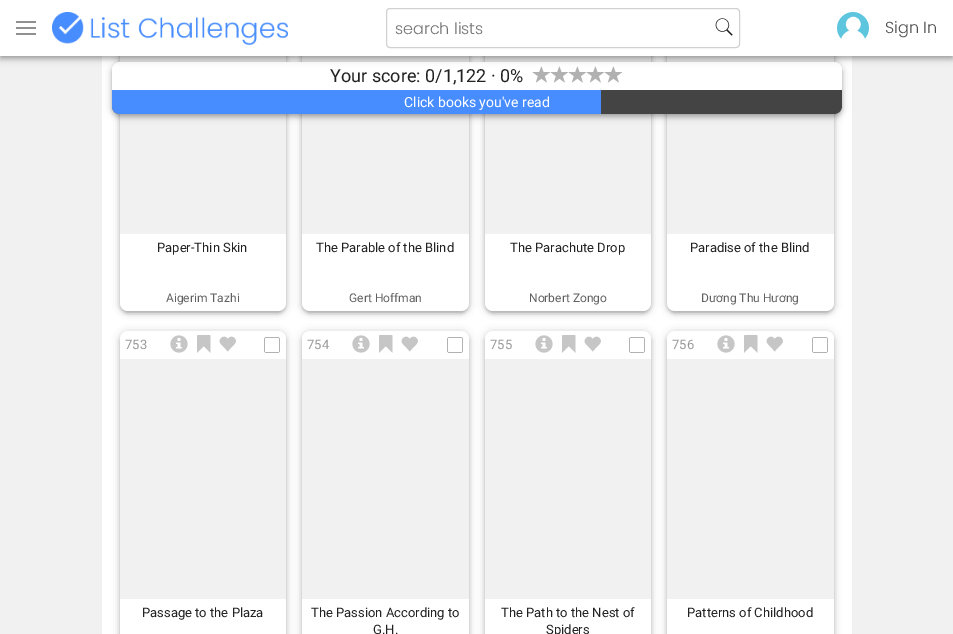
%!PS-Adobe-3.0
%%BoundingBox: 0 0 953 634
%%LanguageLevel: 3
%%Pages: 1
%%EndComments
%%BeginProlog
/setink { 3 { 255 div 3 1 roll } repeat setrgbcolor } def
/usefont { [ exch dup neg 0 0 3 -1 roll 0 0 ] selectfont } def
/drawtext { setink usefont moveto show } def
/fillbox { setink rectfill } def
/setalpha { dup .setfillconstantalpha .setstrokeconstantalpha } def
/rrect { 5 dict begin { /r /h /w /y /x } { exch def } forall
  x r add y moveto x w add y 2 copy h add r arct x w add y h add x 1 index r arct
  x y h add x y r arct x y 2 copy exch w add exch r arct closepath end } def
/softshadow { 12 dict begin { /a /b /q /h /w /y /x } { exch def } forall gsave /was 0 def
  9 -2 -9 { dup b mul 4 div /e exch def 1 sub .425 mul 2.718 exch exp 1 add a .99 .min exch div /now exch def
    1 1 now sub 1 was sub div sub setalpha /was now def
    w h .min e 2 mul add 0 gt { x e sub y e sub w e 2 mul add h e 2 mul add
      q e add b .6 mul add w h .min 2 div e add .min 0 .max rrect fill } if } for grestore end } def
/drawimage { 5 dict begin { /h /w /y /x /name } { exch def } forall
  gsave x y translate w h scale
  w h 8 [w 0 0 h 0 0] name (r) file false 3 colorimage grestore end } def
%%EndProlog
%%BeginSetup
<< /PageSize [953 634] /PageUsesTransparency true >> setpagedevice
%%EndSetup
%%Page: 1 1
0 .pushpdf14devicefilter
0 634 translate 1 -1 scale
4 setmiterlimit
0 0 953 634 241 241 241 fillbox
102 56 750 578 255 255 255 fillbox
0 0 0 setink
120 -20 166 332 8 4 0.2 softshadow
122 -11 162 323 6 1.5 0.12 softshadow
120 -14 166 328 8 2 0.14 softshadow
255 255 255 setink
120 -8 166 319 8 rrect fill
120 56 166 178 241 241 241 fillbox
0 0 0 setink
302 -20 167 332 8 4 0.2 softshadow
304 -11 163 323 6 1.5 0.12 softshadow
302 -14 167 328 8 2 0.14 softshadow
255 255 255 setink
302 -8 167 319 8 rrect fill
302 56 167 178 241 241 241 fillbox
0 0 0 setink
485 -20 166 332 8 4 0.2 softshadow
487 -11 162 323 6 1.5 0.12 softshadow
485 -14 166 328 8 2 0.14 softshadow
255 255 255 setink
485 -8 166 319 8 rrect fill
485 56 166 178 241 241 241 fillbox
0 0 0 setink
667 -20 167 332 8 4 0.2 softshadow
669 -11 163 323 6 1.5 0.12 softshadow
667 -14 167 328 8 2 0.14 softshadow
255 255 255 setink
667 -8 167 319 8 rrect fill
667 56 167 178 241 241 241 fillbox
0 0 0 setink
113 65 728 50 7 2 0.2 softshadow
112 63 730 52 8 5 0.12 softshadow
112 66 730 52 8 2.5 0.14 softshadow
255 255 255 setink
112 62 730 52 8 rrect fill
0 0 0 setink
1 3 951 54 0 2 0.2 softshadow
(assets/img5.rgb) 532 66 19 17 drawimage
(assets/img6.rgb) 550 66 19 17 drawimage
(assets/img6.rgb) 568 66 19 17 drawimage
(assets/img6.rgb) 586 66 19 17 drawimage
(assets/img6.rgb) 604 66 19 17 drawimage
0 1 953 56 0 5 0.12 softshadow
0 4 953 56 0 2.5 0.14 softshadow
0 0 953 56 255 255 255 fillbox
(assets/img1.rgb) 16 21 20 14 drawimage
(assets/img2.rgb) 52 12 236 33 drawimage
209 209 209 setink
386.5 8.5 353 39 3.5 rrect stroke
(search lists) 395 34 /Poppins-Light 16 117 117 117 drawtext
(assets/img3.rgb) 715 18 18 18 drawimage
(assets/img4.rgb) 837 12 32 27 drawimage
(Sign In) 885 33 /Poppins-Light 16 81 81 81 drawtext
(Your score: 0/1,122 · 0%) 330 82 /Roboto-Regular 18 34 34 34 drawtext
68 68 68 setink
112 90 moveto 842 90 lineto 842 106 lineto 842 110.5 838.5 114 834 114 curveto 120 114 lineto 115.5 114 112 110.5 112 106 curveto closepath fill
72 141 255 setink
112 90 moveto 601 90 lineto 601 114 lineto 120 114 lineto 115.5 114 112 110.5 112 106 curveto closepath fill
(Click books you've read) 404 107 /Roboto-Regular 14 255 255 255 drawtext
(Paper-Thin Skin) 157 252 /Roboto-Regular 13 34 34 34 drawtext
(Aigerim Tazhi) 166 302 /Roboto-Regular 12 97 97 97 drawtext
(The Parable of the Blind) 316 252 /Roboto-Regular 13 34 34 34 drawtext
(Gert Hoffman) 349 302 /Roboto-Regular 12 97 97 97 drawtext
(The Parachute Drop) 510 252 /Roboto-Regular 13 34 34 34 drawtext
(Norbert Zongo) 529 302 /Roboto-Regular 12 97 97 97 drawtext
(Paradise of the Blind) 690 252 /Roboto-Regular 13 34 34 34 drawtext
(Dương Thu Hương) 701 302 /Roboto-Regular 12 97 97 97 drawtext
0 0 0 setink
120 332 166 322 8 4 0.2 softshadow
120 334 166 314 8 2 0.14 softshadow
255 255 255 setink
120 331 166 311 8 rrect fill
(753) 125 349 /Roboto-Regular 13 153 153 153 drawtext
(assets/img7.rgb) 170 335 18 18 drawimage
(assets/img8.rgb) 197 335 14 18 drawimage
(assets/img9.rgb) 219 336 17 16 drawimage
(assets/img10.rgb) 264 337 16 16 drawimage
120 359 166 240 241 241 241 fillbox
(Passage to the Plaza) 142 617 /Roboto-Regular 13 34 34 34 drawtext
0 0 0 setink
302 332 167 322 8 4 0.2 softshadow
302 334 167 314 8 2 0.14 softshadow
255 255 255 setink
302 331 167 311 8 rrect fill
(754) 307 349 /Roboto-Regular 13 153 153 153 drawtext
(assets/img7.rgb) 352 335 18 18 drawimage
(assets/img8.rgb) 379 335 14 18 drawimage
(assets/img9.rgb) 401 336 17 16 drawimage
(assets/img10.rgb) 447 337 16 16 drawimage
302 359 167 240 241 241 241 fillbox
(The Passion According to) 311 617 /Roboto-Regular 13 34 34 34 drawtext
(G.H.) 373 634 /Roboto-Regular 13 34 34 34 drawtext
0 0 0 setink
485 332 166 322 8 4 0.2 softshadow
485 334 166 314 8 2 0.14 softshadow
255 255 255 setink
485 331 166 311 8 rrect fill
(755) 490 349 /Roboto-Regular 13 153 153 153 drawtext
(assets/img7.rgb) 535 335 18 18 drawimage
(assets/img8.rgb) 562 335 14 18 drawimage
(assets/img9.rgb) 584 336 17 16 drawimage
(assets/img10.rgb) 629 337 16 16 drawimage
485 359 166 240 241 241 241 fillbox
(The Path to the Nest of) 501 617 /Roboto-Regular 13 34 34 34 drawtext
(Spiders) 546 634 /Roboto-Regular 13 34 34 34 drawtext
0 0 0 setink
667 332 167 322 8 4 0.2 softshadow
667 334 167 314 8 2 0.14 softshadow
255 255 255 setink
667 331 167 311 8 rrect fill
(756) 672 349 /Roboto-Regular 13 153 153 153 drawtext
(assets/img7.rgb) 717 335 18 18 drawimage
(assets/img8.rgb) 744 335 14 18 drawimage
(assets/img9.rgb) 766 336 17 16 drawimage
(assets/img10.rgb) 812 337 16 16 drawimage
667 359 167 240 241 241 241 fillbox
(Patterns of Childhood) 687 617 /Roboto-Regular 13 34 34 34 drawtext
.poppdf14devicefilter showpage
%%EOF
